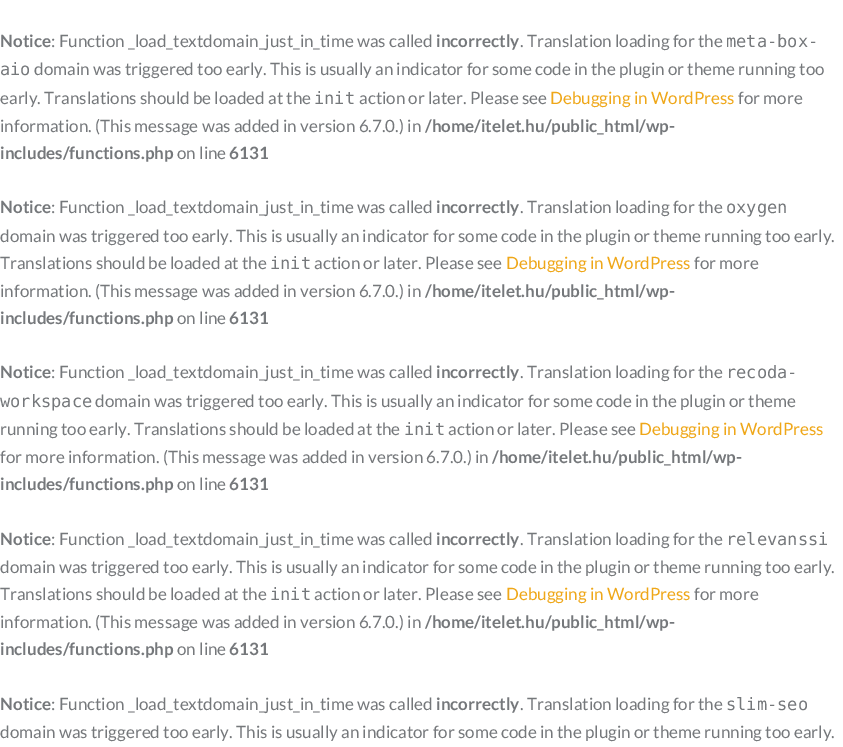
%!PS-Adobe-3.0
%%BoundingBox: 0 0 843 747
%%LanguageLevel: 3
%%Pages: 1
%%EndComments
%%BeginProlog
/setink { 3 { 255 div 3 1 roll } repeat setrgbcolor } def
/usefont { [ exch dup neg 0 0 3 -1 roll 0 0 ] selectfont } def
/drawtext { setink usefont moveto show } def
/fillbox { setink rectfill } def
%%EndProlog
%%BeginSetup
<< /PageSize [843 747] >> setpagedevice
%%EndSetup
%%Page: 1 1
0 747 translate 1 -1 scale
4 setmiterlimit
0 0 843 747 255 255 255 fillbox
(Notice) 0 47 /Lato-Bold 17 117 120 123 drawtext
(: Function _load_textdomain_just_in_time was called) 51 47 /Lato-Regular 17 117 120 123 drawtext
(incorrectly) 436 47 /Lato-Bold 17 117 120 123 drawtext
(. Translation loading for the) 520 47 /Lato-Regular 17 117 120 123 drawtext
(meta-box-) 726 47 /DejaVuSansMono-Regular 17 117 120 123 drawtext
(aio) 0 75 /DejaVuSansMono-Regular 17 117 120 123 drawtext
(domain was triggered too early. This is usually an indicator for some code in the plugin or theme running too) 34 75 /Lato-Regular 17 117 120 123 drawtext
(early. Translations should be loaded at the) 0 104 /Lato-Regular 17 117 120 123 drawtext
(init) 314 104 /DejaVuSansMono-Regular 17 117 120 123 drawtext
(action or later. Please see) 359 104 /Lato-Regular 17 117 120 123 drawtext
(Debugging in WordPress) 550 104 /Lato-Regular 17 239 167 24 drawtext
(for more) 738 104 /Lato-Regular 17 117 120 123 drawtext
(information. \(This message was added in version 6.7.0.\) in) 0 132 /Lato-Regular 17 117 120 123 drawtext
(/home/itelet.hu/public_html/wp-) 425 132 /Lato-Bold 17 117 120 123 drawtext
(includes/functions.php) 0 159 /Lato-Bold 17 117 120 123 drawtext
(on line) 177 159 /Lato-Regular 17 117 120 123 drawtext
(6131) 229 159 /Lato-Bold 17 117 120 123 drawtext
(Notice) 0 213 /Lato-Bold 17 117 120 123 drawtext
(: Function _load_textdomain_just_in_time was called) 51 213 /Lato-Regular 17 117 120 123 drawtext
(incorrectly) 436 213 /Lato-Bold 17 117 120 123 drawtext
(. Translation loading for the) 520 213 /Lato-Regular 17 117 120 123 drawtext
(oxygen) 726 213 /DejaVuSansMono-Regular 17 117 120 123 drawtext
(domain was triggered too early. This is usually an indicator for some code in the plugin or theme running too early.) 0 242 /Lato-Regular 17 117 120 123 drawtext
(Translations should be loaded at the) 0 269 /Lato-Regular 17 117 120 123 drawtext
(init) 270 269 /DejaVuSansMono-Regular 17 117 120 123 drawtext
(action or later. Please see) 314 269 /Lato-Regular 17 117 120 123 drawtext
(Debugging in WordPress) 506 269 /Lato-Regular 17 239 167 24 drawtext
(for more) 694 269 /Lato-Regular 17 117 120 123 drawtext
(information. \(This message was added in version 6.7.0.\) in) 0 297 /Lato-Regular 17 117 120 123 drawtext
(/home/itelet.hu/public_html/wp-) 425 297 /Lato-Bold 17 117 120 123 drawtext
(includes/functions.php) 0 324 /Lato-Bold 17 117 120 123 drawtext
(on line) 177 324 /Lato-Regular 17 117 120 123 drawtext
(6131) 229 324 /Lato-Bold 17 117 120 123 drawtext
(Notice) 0 378 /Lato-Bold 17 117 120 123 drawtext
(: Function _load_textdomain_just_in_time was called) 51 378 /Lato-Regular 17 117 120 123 drawtext
(incorrectly) 436 378 /Lato-Bold 17 117 120 123 drawtext
(. Translation loading for the) 520 378 /Lato-Regular 17 117 120 123 drawtext
(recoda-) 726 378 /DejaVuSansMono-Regular 17 117 120 123 drawtext
(workspace) 0 407 /DejaVuSansMono-Regular 17 117 120 123 drawtext
(domain was triggered too early. This is usually an indicator for some code in the plugin or theme) 95 407 /Lato-Regular 17 117 120 123 drawtext
(running too early. Translations should be loaded at the) 0 435 /Lato-Regular 17 117 120 123 drawtext
(init) 404 435 /DejaVuSansMono-Regular 17 117 120 123 drawtext
(action or later. Please see) 448 435 /Lato-Regular 17 117 120 123 drawtext
(Debugging in WordPress) 639 435 /Lato-Regular 17 239 167 24 drawtext
(for more information. \(This message was added in version 6.7.0.\) in) 0 463 /Lato-Regular 17 117 120 123 drawtext
(/home/itelet.hu/public_html/wp-) 492 463 /Lato-Bold 17 117 120 123 drawtext
(includes/functions.php) 0 490 /Lato-Bold 17 117 120 123 drawtext
(on line) 177 490 /Lato-Regular 17 117 120 123 drawtext
(6131) 229 490 /Lato-Bold 17 117 120 123 drawtext
(Notice) 0 545 /Lato-Bold 17 117 120 123 drawtext
(: Function _load_textdomain_just_in_time was called) 51 545 /Lato-Regular 17 117 120 123 drawtext
(incorrectly) 436 545 /Lato-Bold 17 117 120 123 drawtext
(. Translation loading for the) 520 545 /Lato-Regular 17 117 120 123 drawtext
(relevanssi) 726 545 /DejaVuSansMono-Regular 17 117 120 123 drawtext
(domain was triggered too early. This is usually an indicator for some code in the plugin or theme running too early.) 0 573 /Lato-Regular 17 117 120 123 drawtext
(Translations should be loaded at the) 0 600 /Lato-Regular 17 117 120 123 drawtext
(init) 270 600 /DejaVuSansMono-Regular 17 117 120 123 drawtext
(action or later. Please see) 314 600 /Lato-Regular 17 117 120 123 drawtext
(Debugging in WordPress) 506 600 /Lato-Regular 17 239 167 24 drawtext
(for more) 694 600 /Lato-Regular 17 117 120 123 drawtext
(information. \(This message was added in version 6.7.0.\) in) 0 628 /Lato-Regular 17 117 120 123 drawtext
(/home/itelet.hu/public_html/wp-) 425 628 /Lato-Bold 17 117 120 123 drawtext
(includes/functions.php) 0 655 /Lato-Bold 17 117 120 123 drawtext
(on line) 177 655 /Lato-Regular 17 117 120 123 drawtext
(6131) 229 655 /Lato-Bold 17 117 120 123 drawtext
(Notice) 0 710 /Lato-Bold 17 117 120 123 drawtext
(: Function _load_textdomain_just_in_time was called) 51 710 /Lato-Regular 17 117 120 123 drawtext
(incorrectly) 436 710 /Lato-Bold 17 117 120 123 drawtext
(. Translation loading for the) 520 710 /Lato-Regular 17 117 120 123 drawtext
(slim-seo) 726 710 /DejaVuSansMono-Regular 17 117 120 123 drawtext
(domain was triggered too early. This is usually an indicator for some code in the plugin or theme running too early.) 0 738 /Lato-Regular 17 117 120 123 drawtext
showpage
%%EOF
